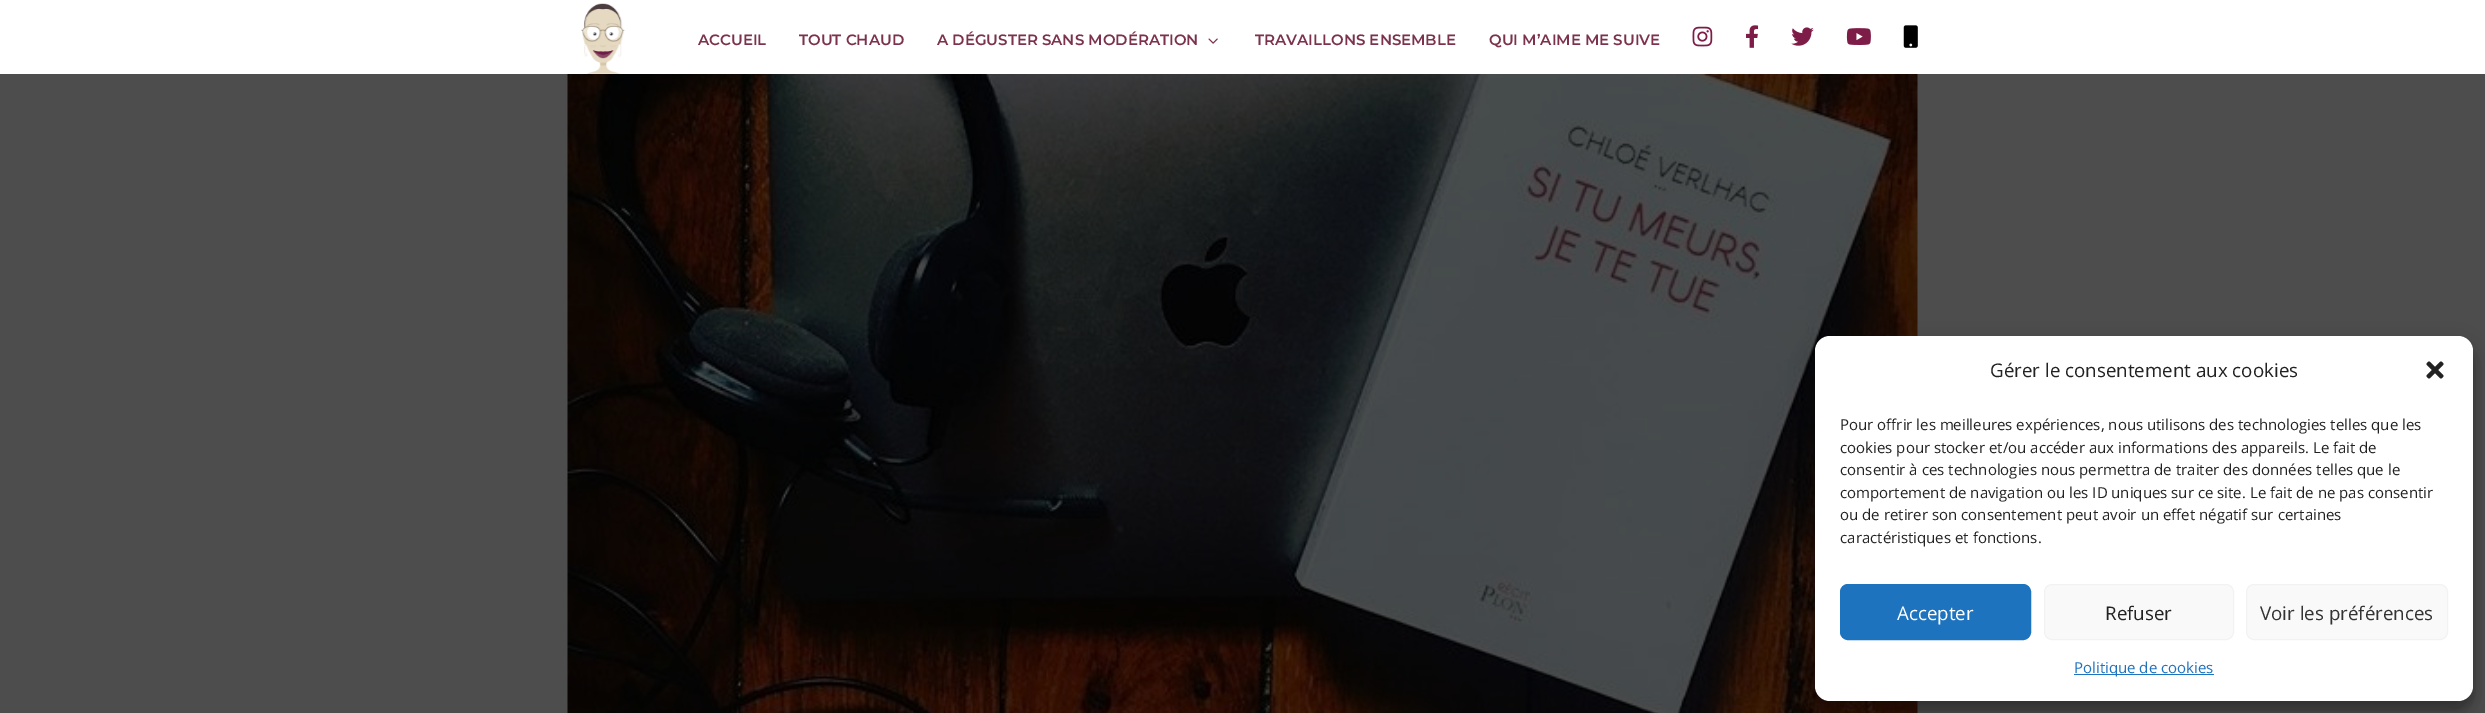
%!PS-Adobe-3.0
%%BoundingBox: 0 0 2485 713
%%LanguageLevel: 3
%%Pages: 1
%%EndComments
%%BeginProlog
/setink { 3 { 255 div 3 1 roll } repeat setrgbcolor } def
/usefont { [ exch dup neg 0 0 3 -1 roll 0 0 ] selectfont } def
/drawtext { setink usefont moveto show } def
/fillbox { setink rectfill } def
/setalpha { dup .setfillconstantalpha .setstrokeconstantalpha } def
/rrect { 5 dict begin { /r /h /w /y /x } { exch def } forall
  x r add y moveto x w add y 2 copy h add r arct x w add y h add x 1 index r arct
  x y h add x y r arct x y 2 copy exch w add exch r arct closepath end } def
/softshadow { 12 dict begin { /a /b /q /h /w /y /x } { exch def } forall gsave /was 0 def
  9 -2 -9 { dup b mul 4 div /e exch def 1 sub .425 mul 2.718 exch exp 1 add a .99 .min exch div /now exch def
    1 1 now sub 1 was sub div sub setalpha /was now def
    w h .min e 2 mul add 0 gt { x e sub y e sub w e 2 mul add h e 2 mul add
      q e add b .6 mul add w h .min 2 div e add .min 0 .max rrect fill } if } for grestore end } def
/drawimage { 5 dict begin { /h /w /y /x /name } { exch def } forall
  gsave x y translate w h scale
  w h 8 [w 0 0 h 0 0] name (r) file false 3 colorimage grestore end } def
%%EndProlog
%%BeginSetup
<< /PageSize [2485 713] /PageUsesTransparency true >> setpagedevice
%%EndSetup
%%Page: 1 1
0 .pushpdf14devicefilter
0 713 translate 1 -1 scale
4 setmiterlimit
0 0 2485 713 77 77 77 fillbox
0 0 2485 74 255 255 255 fillbox
(assets/img1.rgb) 581 3 44 71 drawimage
(ACCUEIL) 698 45 /Montserrat-Thin 15 124 50 77 drawtext
(TOUT CHAUD) 799 45 /Montserrat-Thin 15 124 50 77 drawtext
(A DÉGUSTER SANS MODÉRATION) 937 45 /Montserrat-Thin 15 124 50 77 drawtext
(assets/img2.rgb) 1208 38 10 6 drawimage
(TRAVAILLONS ENSEMBLE) 1255 45 /Montserrat-Thin 15 124 50 77 drawtext
(QUI M’AIME ME SUIVE) 1489 45 /Montserrat-Thin 15 124 50 77 drawtext
(assets/img3.rgb) 1692 26 21 21 drawimage
(assets/img4.rgb) 1746 25 13 23 drawimage
(assets/img5.rgb) 1791 27 23 19 drawimage
(assets/img6.rgb) 1846 28 25 17 drawimage
(assets/img7.rgb) 1903 25 15 23 drawimage
(assets/img8.rgb) 567 74 1351 639 drawimage
0 0 0 setink
1815 344 658 365 15 4 0.23 softshadow
1815 349 658 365 15 12.5 0.19 softshadow
255 255 255 setink
1815 336 658 365 15 rrect fill
(Gérer le consentement aux cookies) 1990 377 /OpenSans-Regular 18.75 34 34 34 drawtext
(assets/img9.rgb) 2426 361 18 18 drawimage
(Pour offrir les meilleures expériences, nous utilisons des technologies telles que les) 1840 430 /OpenSans-Regular 15 34 34 34 drawtext
(cookies pour stocker et/ou accéder aux informations des appareils. Le fait de) 1840 453 /OpenSans-Regular 15 34 34 34 drawtext
(consentir à ces technologies nous permettra de traiter des données telles que le) 1840 475 /OpenSans-Regular 15 34 34 34 drawtext
(comportement de navigation ou les ID uniques sur ce site. Le fait de ne pas consentir) 1840 498 /OpenSans-Regular 15 34 34 34 drawtext
(ou de retirer son consentement peut avoir un effet négatif sur certaines) 1840 520 /OpenSans-Regular 15 34 34 34 drawtext
(caractéristiques et fonctions.) 1840 543 /OpenSans-Regular 15 34 34 34 drawtext
30 115 190 setink
1840.5 584.5 190 55 7.5 rrect gsave fill grestore
stroke
(Accepter) 1897 620 /OpenSans-Regular 18.75 255 255 255 drawtext
249 249 249 setink
2044.5 584.5 189 55 7.5 rrect gsave fill grestore
242 242 242 setink
stroke
(Refuser) 2105 620 /OpenSans-Regular 18.75 34 34 34 drawtext
249 249 249 setink
2246.5 584.5 201 55 7.5 rrect gsave fill grestore
242 242 242 setink
stroke
(Voir les préférences) 2260 620 /OpenSans-Regular 18.75 51 51 51 drawtext
2074 674 140 1 30 115 190 fillbox
(Politique de cookies) 2074 673 /OpenSans-Regular 15 30 115 190 drawtext
.poppdf14devicefilter showpage
%%EOF
